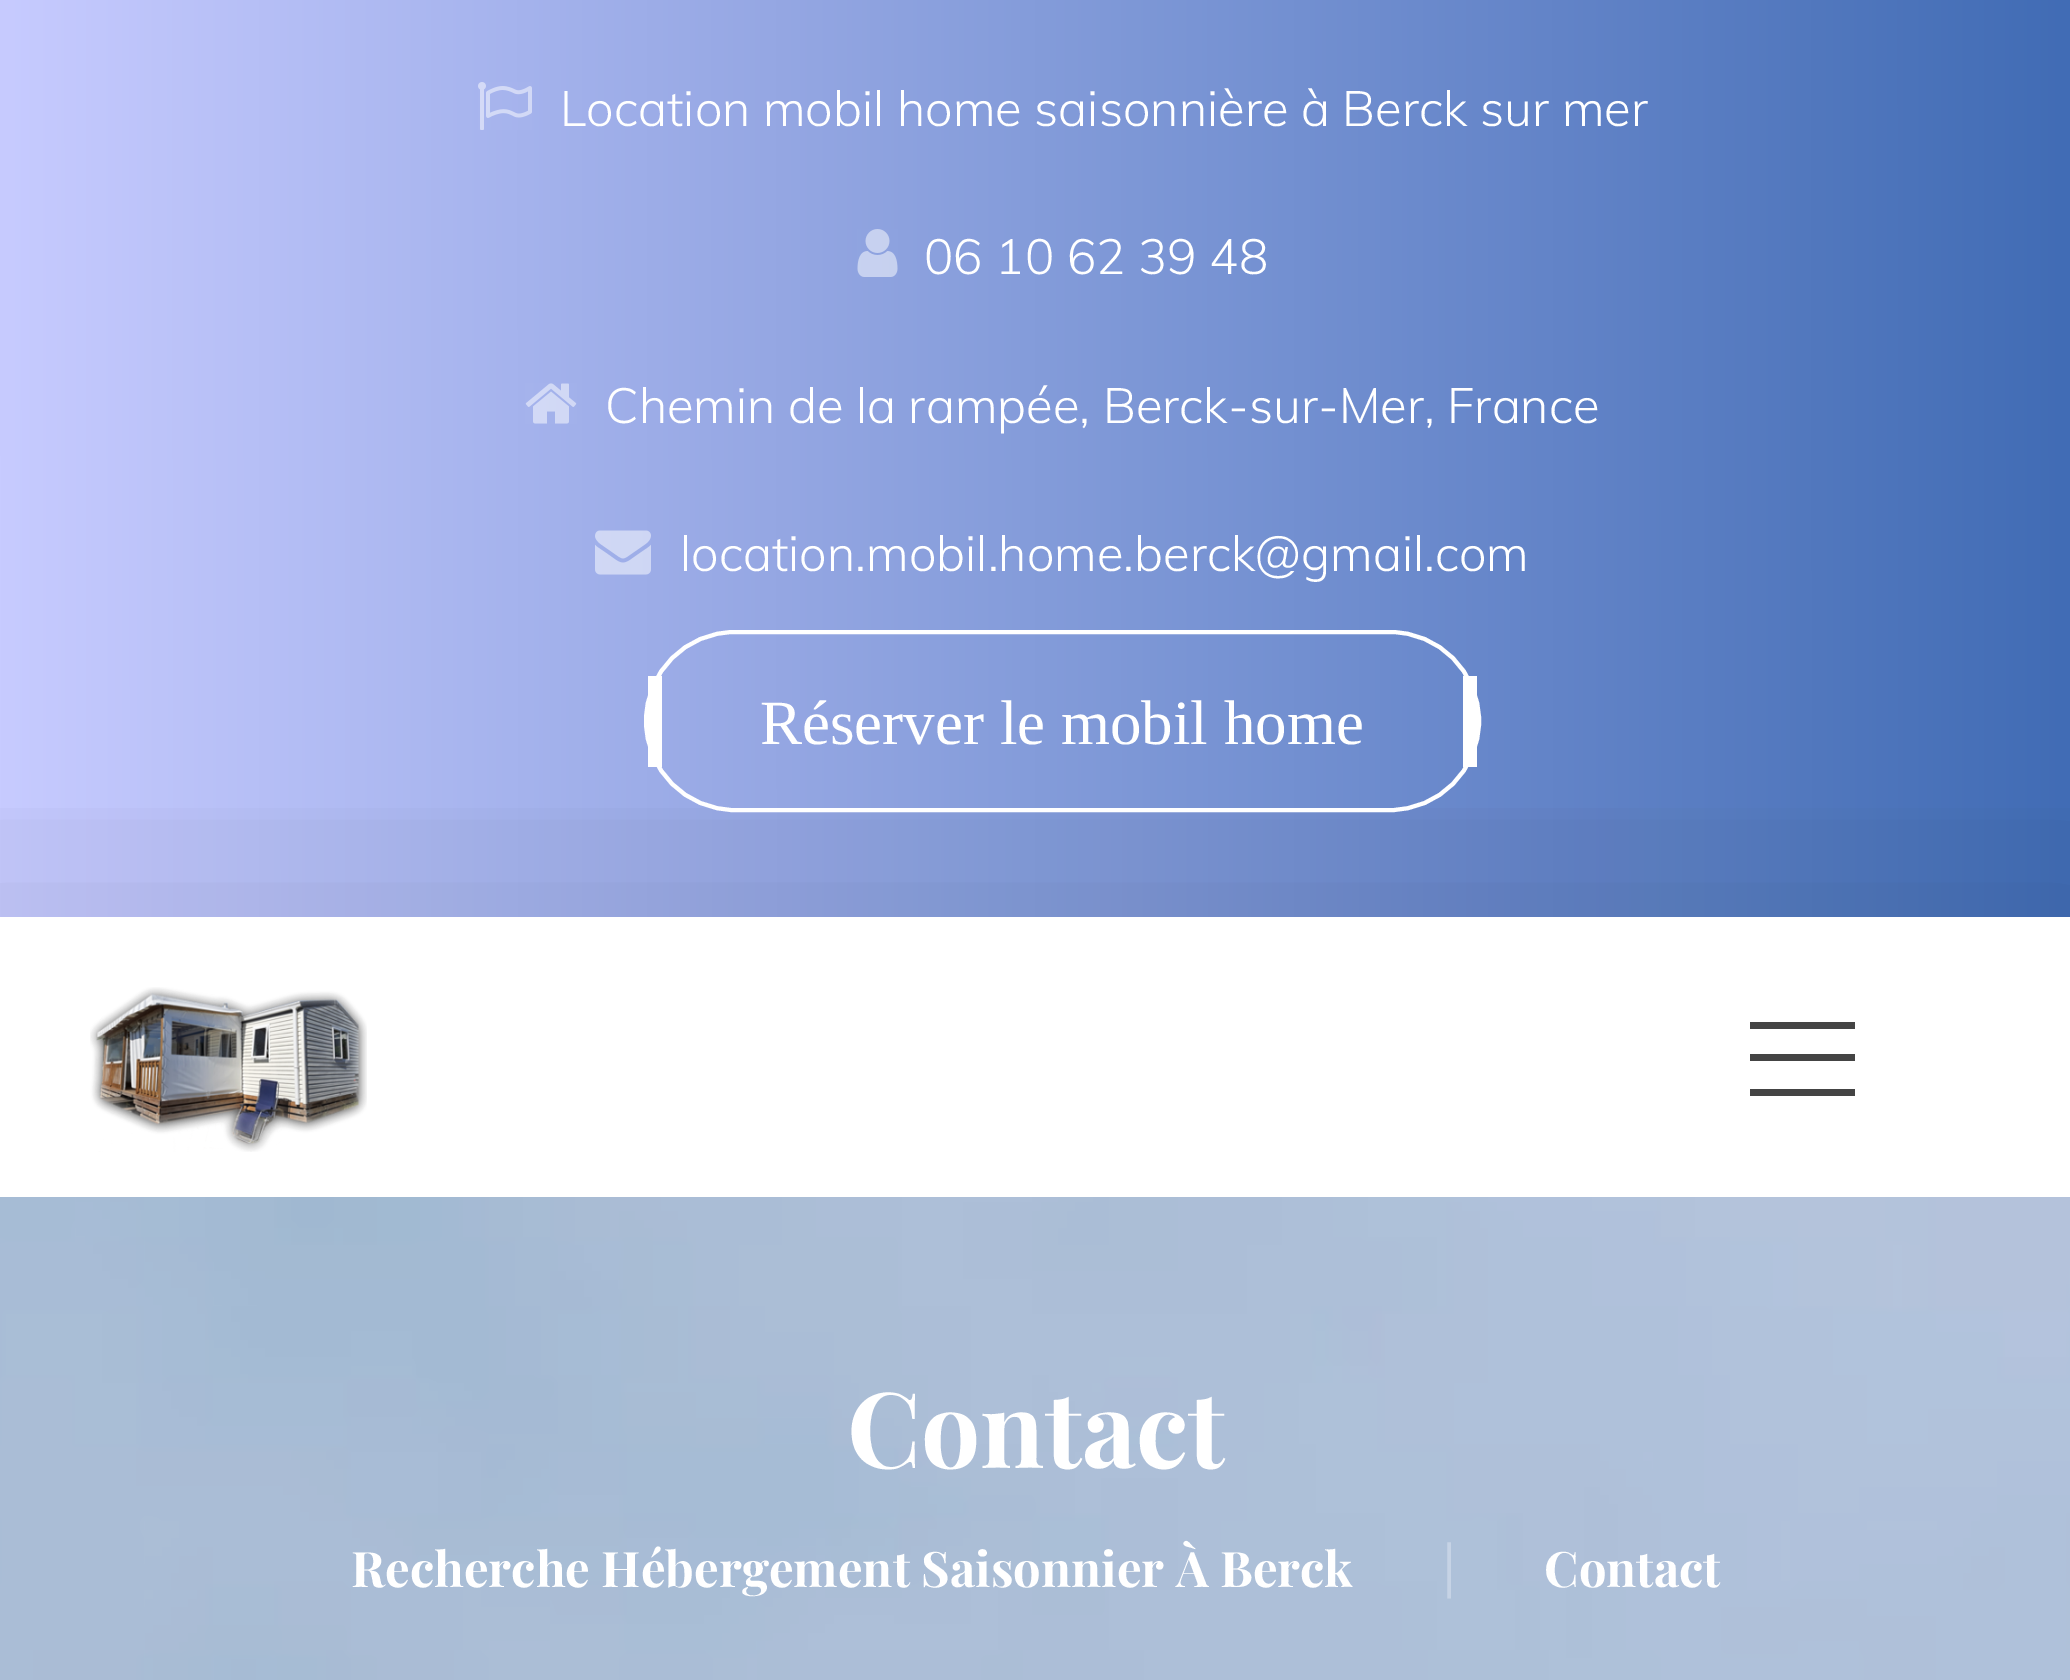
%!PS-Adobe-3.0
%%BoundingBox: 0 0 2070 1680
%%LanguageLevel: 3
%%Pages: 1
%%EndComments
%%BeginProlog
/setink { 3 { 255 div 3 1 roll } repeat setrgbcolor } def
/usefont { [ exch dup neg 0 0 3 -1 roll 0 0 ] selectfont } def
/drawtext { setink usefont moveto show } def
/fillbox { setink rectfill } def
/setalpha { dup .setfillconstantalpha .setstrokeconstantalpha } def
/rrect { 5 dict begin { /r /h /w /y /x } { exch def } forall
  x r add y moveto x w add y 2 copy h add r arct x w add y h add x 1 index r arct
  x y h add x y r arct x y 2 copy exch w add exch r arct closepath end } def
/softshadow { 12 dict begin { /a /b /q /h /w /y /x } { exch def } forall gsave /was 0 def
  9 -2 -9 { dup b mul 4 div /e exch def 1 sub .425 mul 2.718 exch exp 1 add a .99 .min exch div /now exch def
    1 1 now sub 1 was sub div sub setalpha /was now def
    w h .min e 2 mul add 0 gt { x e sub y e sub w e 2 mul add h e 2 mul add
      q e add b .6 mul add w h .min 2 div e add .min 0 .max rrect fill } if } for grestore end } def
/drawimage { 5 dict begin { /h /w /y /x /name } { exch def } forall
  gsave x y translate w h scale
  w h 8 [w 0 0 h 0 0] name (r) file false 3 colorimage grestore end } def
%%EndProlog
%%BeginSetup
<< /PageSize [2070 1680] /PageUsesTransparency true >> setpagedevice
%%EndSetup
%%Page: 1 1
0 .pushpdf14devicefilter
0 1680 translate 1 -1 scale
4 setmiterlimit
0 0 2070 1680 255 255 255 fillbox
gsave 0 0 moveto 2070 0 lineto 2070 917 lineto 0 917 lineto closepath clip newpath
<< /ShadingType 2 /ColorSpace /DeviceRGB /Coords [0 459 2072 458] /Extend [true true] /Function << /FunctionType 2 /Domain [0 1] /C0 [0.78 0.796 1] /C1 [0.255 0.424 0.71] /N 1 >> >> shfill grestore
(assets/img1.rgb) 478 82 54 48 drawimage
(Location mobil home saisonnière à Berck sur mer) 560 126 /Muli-Light 49 255 255 255 drawtext
(assets/img2.rgb) 857 229 41 48 drawimage
(06 10 62 39 48) 924 274 /Muli-Light 49 255 255 255 drawtext
(assets/img3.rgb) 525 383 52 41 drawimage
(Chemin de la rampée, Berck-sur-Mer, France) 605 423 /Muli-Light 49 255 255 255 drawtext
gsave
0 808 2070 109 rectclip
0 0 0 setink
-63 914 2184 392 0 126 0.1 softshadow
grestore
(assets/img4.rgb) 595 530 56 45 drawimage
(location.mobil.home.berck@gmail.com) 680 571 /Muli-Light 49 255 255 255 drawtext
4 setlinewidth
646 632 833 178 89 rrect stroke
1463 676 14 91 255 255 255 fillbox
648 676 14 91 255 255 255 fillbox
(Réserver le mobil home) 760 744 /LiberationSerif-Regular 63 255 255 255 drawtext
(assets/img5.rgb) 90 987 277 165 drawimage
1750 1022 105 7 68 68 68 fillbox
1750 1089 105 7 68 68 68 fillbox
1750 1054 105 7 68 68 68 fillbox
(assets/img6.rgb) 0 1197 2070 483 drawimage
(Contact) 847 1468 /PlayfairDisplay-Bold 105 255 255 255 drawtext
(Recherche Hébergement Saisonnier À Berck) 351 1587 /PlayfairDisplay-Bold 49 255 255 255 drawtext
(|) 1441 1587 /Muli-Light 63 198 211 229 drawtext
(Contact) 1544 1587 /PlayfairDisplay-Bold 49 255 255 255 drawtext
.poppdf14devicefilter showpage
%%EOF
